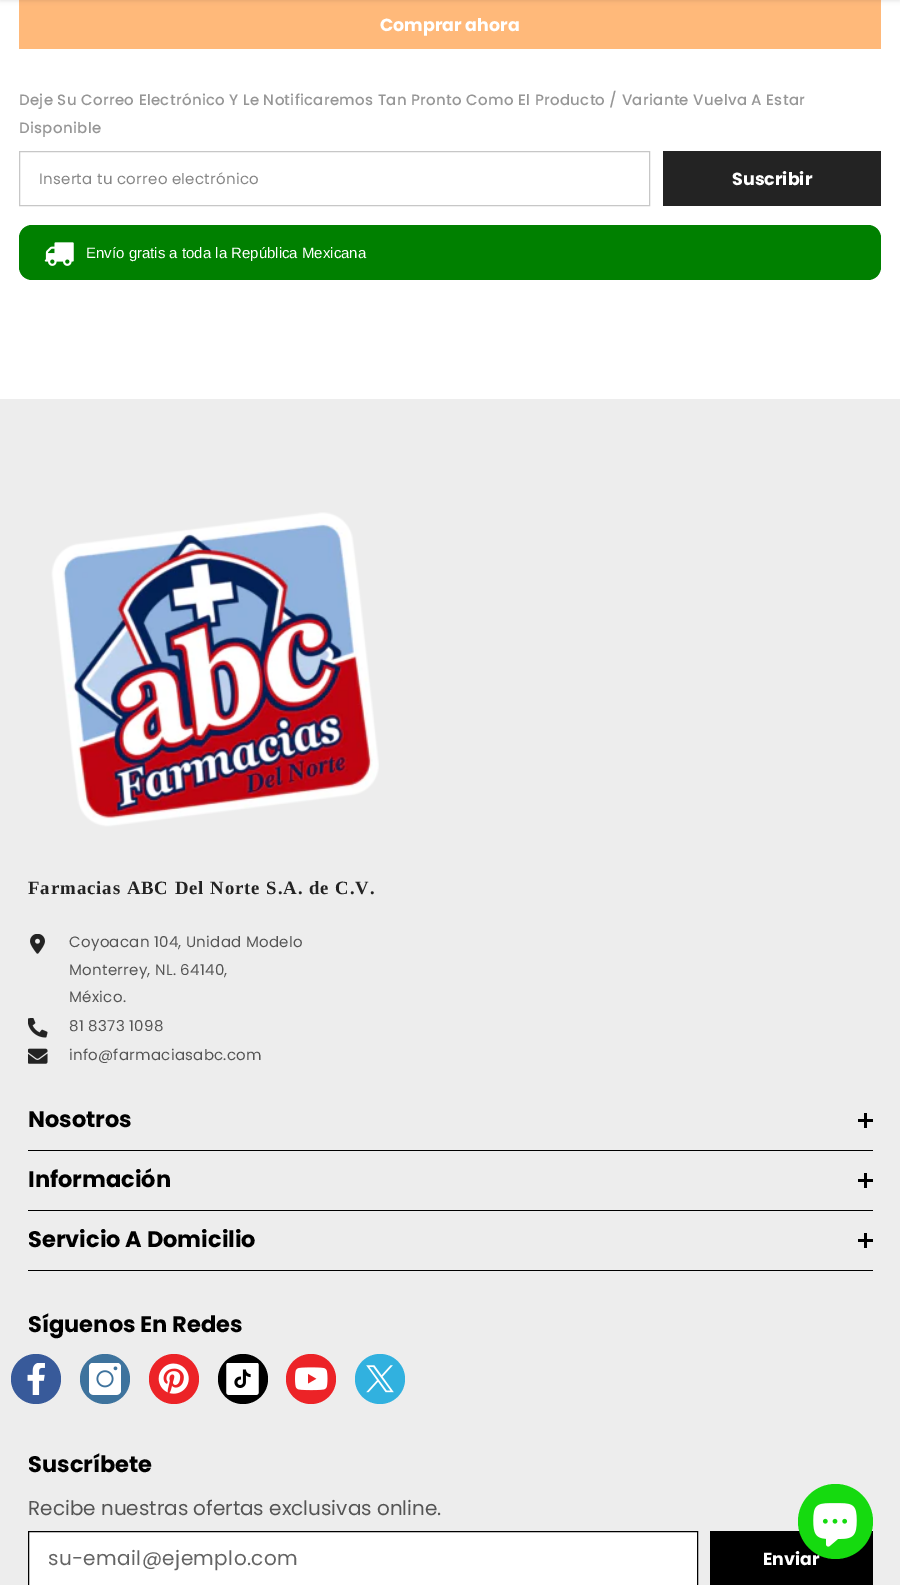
%!PS-Adobe-3.0
%%BoundingBox: 0 0 900 1585
%%LanguageLevel: 3
%%Pages: 1
%%EndComments
%%BeginProlog
/setink { 3 { 255 div 3 1 roll } repeat setrgbcolor } def
/usefont { [ exch dup neg 0 0 3 -1 roll 0 0 ] selectfont } def
/drawtext { setink usefont moveto show } def
/fillbox { setink rectfill } def
/setalpha { dup .setfillconstantalpha .setstrokeconstantalpha } def
/disc { newpath 0 360 arc closepath } def
/rrect { 5 dict begin { /r /h /w /y /x } { exch def } forall
  x r add y moveto x w add y 2 copy h add r arct x w add y h add x 1 index r arct
  x y h add x y r arct x y 2 copy exch w add exch r arct closepath end } def
/softshadow { 12 dict begin { /a /b /q /h /w /y /x } { exch def } forall gsave /was 0 def
  9 -2 -9 { dup b mul 4 div /e exch def 1 sub .425 mul 2.718 exch exp 1 add a .99 .min exch div /now exch def
    1 1 now sub 1 was sub div sub setalpha /was now def
    w h .min e 2 mul add 0 gt { x e sub y e sub w e 2 mul add h e 2 mul add
      q e add b .6 mul add w h .min 2 div e add .min 0 .max rrect fill } if } for grestore end } def
/drawimage { 5 dict begin { /h /w /y /x /name } { exch def } forall
  gsave x y translate w h scale
  w h 8 [w 0 0 h 0 0] name (r) file false 3 colorimage grestore end } def
%%EndProlog
%%BeginSetup
<< /PageSize [900 1585] /PageUsesTransparency true >> setpagedevice
%%EndSetup
%%Page: 1 1
0 .pushpdf14devicefilter
0 1585 translate 1 -1 scale
4 setmiterlimit
0 0 900 1585 255 255 255 fillbox
19 0 862 49 255 185 122 fillbox
0 0 0 setink
0 -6 900 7 0 2 0.1 softshadow
(Comprar ahora) 380 31 /Poppins-Bold 17.5 255 255 255 drawtext
/Poppins-Medium 15 usefont
150 150 150 setink
19 105 moveto 0.3 0 (Deje Su Correo Electrónico Y Le Notificaremos Tan Pronto Como El Producto / Variante Vuelva A Estar) ashow
19 133 moveto 0.3 0 (Disponible) ashow
199 199 199 setink
19.5 151.5 630 54 rectstroke
/Poppins-Regular 15 usefont
134 134 134 setink
39 184 moveto 0.3 0 (Inserta tu correo electrónico) ashow
663 151 218 55 35 35 35 fillbox
(Suscribir) 732 185 /Poppins-Bold 17.5 255 255 255 drawtext
0 128 0 setink
19 225 862 55 13 rrect fill
(assets/img1.rgb) 44 242 30 24 drawimage
(Envío gratis a toda la República Mexicana) 86 258 /LiberationSans-Regular 15 255 255 255 drawtext
0 399 900 1186 237 237 237 fillbox
255 255 255 setink
28.5 1531.5 moveto 697.5 1531.5 lineto 697.5 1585.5 lineto 28.5 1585.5 lineto closepath gsave fill grestore
0 0 0 setink
stroke
/Poppins-Regular 20 usefont
100 100 100 setink
48 1565 moveto 0.4 0 (su-email@ejemplo.com) ashow
(assets/img2.rgb) 256 1565 15 1 drawimage
(assets/img3.rgb) 51 512 328 315 drawimage
/LiberationSerif-Bold 18.75 usefont
35 35 35 setink
28 894 moveto 0.95 0 (Farmacias ABC Del Norte S.A. de C.V.) ashow
(assets/img4.rgb) 30 934 15 20 drawimage
/Poppins-Regular 15 usefont
85 85 85 setink
69 947 moveto 0.3 0 (Coyoacan 104, Unidad Modelo) ashow
69 975 moveto 0.3 0 (Monterrey, NL. 64140,) ashow
69 1002 moveto 0.3 0 (México.) ashow
(assets/img5.rgb) 28 1018 20 20 drawimage
69 1031 moveto 0.3 0 (81 8373 1098) ashow
(assets/img6.rgb) 28 1048 20 16 drawimage
69 1060 moveto 0.3 0 (info@farmaciasabc.com) ashow
28 1150 845 1 0 0 0 fillbox
(Nosotros) 28 1127 /Poppins-Bold 22.5 0 0 0 drawtext
864 1113 3 15 0 0 0 fillbox
858 1119 15 3 0 0 0 fillbox
28 1210 845 1 0 0 0 fillbox
(Información) 28 1187 /Poppins-Bold 22.5 0 0 0 drawtext
864 1173 3 15 0 0 0 fillbox
858 1179 15 3 0 0 0 fillbox
28 1270 845 1 0 0 0 fillbox
(Servicio A Domicilio) 28 1247 /Poppins-Bold 22.5 0 0 0 drawtext
864 1233 3 15 0 0 0 fillbox
858 1239 15 3 0 0 0 fillbox
(Síguenos En Redes) 28 1332 /Poppins-Bold 22.5 0 0 0 drawtext
56 90 154 setink
36 1379 25 disc fill
(assets/img7.rgb) 27 1363 18 32 drawimage
62 115 157 setink
105 1379 25 disc fill
(assets/img8.rgb) 89 1363 32 32 drawimage
236 35 39 setink
174 1379 25 disc fill
(assets/img9.rgb) 158 1363 31 31 drawimage
0 0 0 setink
243 1379 25 disc fill
(assets/img10.rgb) 226 1363 33 32 drawimage
236 35 39 setink
311 1379 25 disc fill
(assets/img11.rgb) 295 1367 33 24 drawimage
49 177 223 setink
380 1379 25 disc fill
(assets/img12.rgb) 366 1365 28 28 drawimage
(Suscríbete) 28 1472 /Poppins-Bold 22.5 0 0 0 drawtext
(Recibe nuestras ofertas exclusivas online.) 28 1515 /Poppins-Regular 20 85 85 85 drawtext
710 1531 163 54 0 0 0 fillbox
(Enviar) 763 1565 /Poppins-Bold 17.5 255 255 255 drawtext
21 218 15 setink
835.5 1521.5 37.5 disc fill
(assets/img13.rgb) 813 1503 44 44 drawimage
.poppdf14devicefilter showpage
%%EOF
